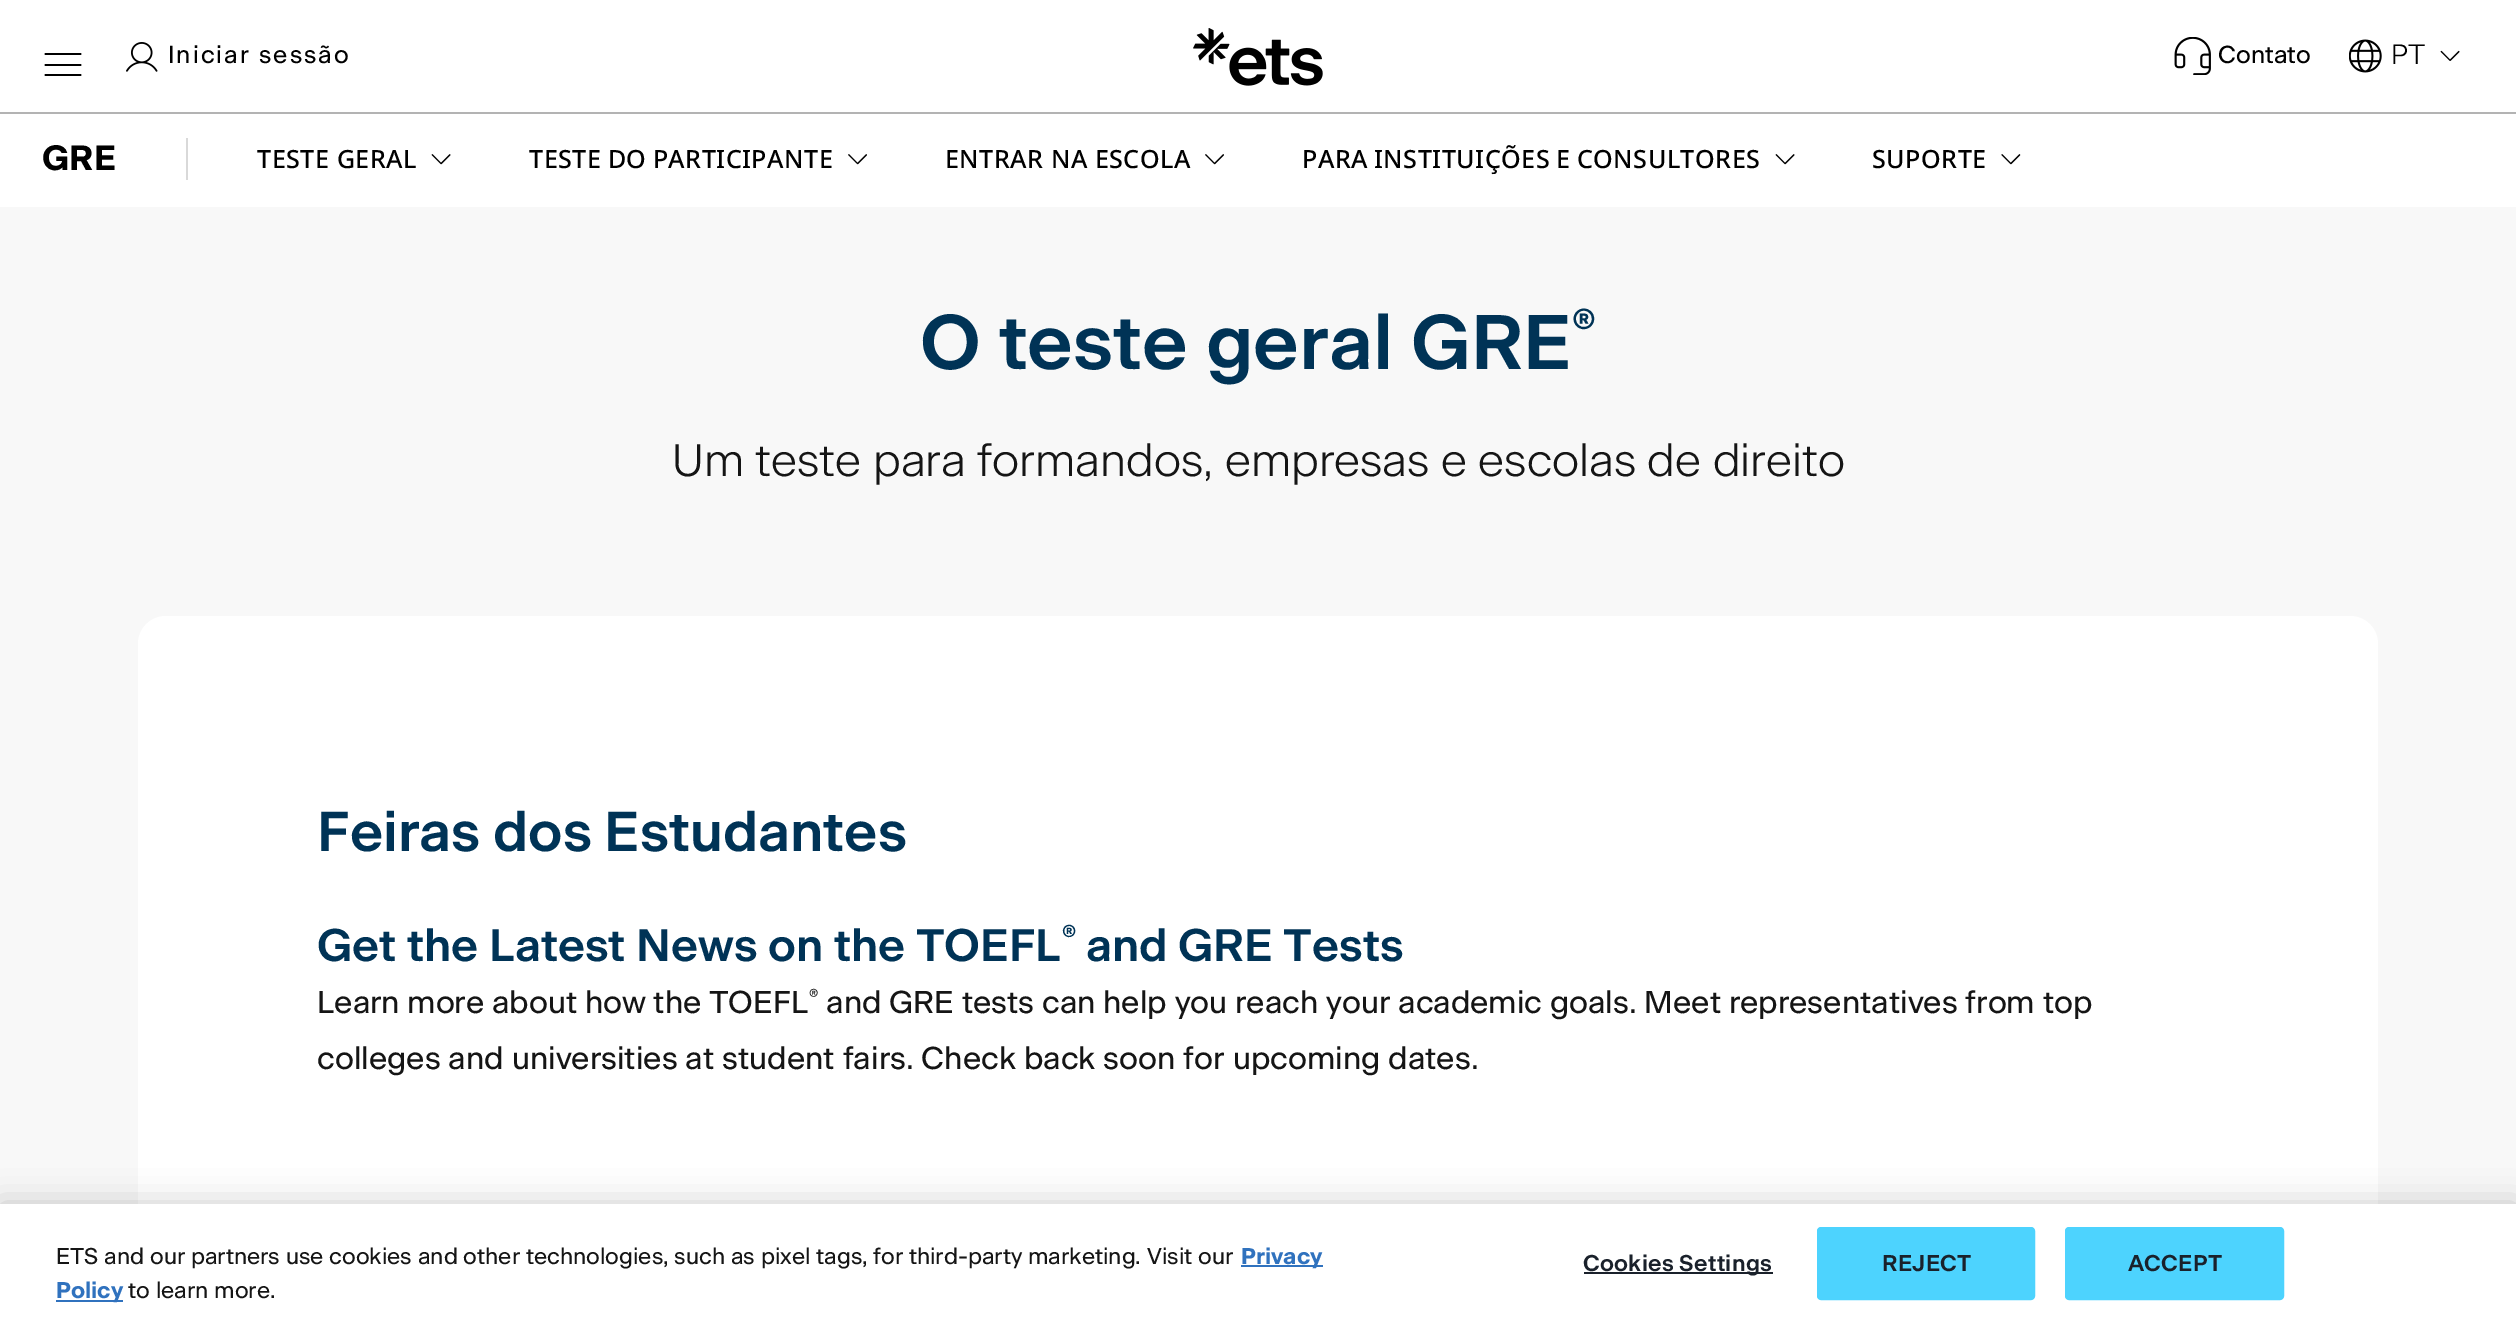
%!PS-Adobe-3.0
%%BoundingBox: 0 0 2516 1328
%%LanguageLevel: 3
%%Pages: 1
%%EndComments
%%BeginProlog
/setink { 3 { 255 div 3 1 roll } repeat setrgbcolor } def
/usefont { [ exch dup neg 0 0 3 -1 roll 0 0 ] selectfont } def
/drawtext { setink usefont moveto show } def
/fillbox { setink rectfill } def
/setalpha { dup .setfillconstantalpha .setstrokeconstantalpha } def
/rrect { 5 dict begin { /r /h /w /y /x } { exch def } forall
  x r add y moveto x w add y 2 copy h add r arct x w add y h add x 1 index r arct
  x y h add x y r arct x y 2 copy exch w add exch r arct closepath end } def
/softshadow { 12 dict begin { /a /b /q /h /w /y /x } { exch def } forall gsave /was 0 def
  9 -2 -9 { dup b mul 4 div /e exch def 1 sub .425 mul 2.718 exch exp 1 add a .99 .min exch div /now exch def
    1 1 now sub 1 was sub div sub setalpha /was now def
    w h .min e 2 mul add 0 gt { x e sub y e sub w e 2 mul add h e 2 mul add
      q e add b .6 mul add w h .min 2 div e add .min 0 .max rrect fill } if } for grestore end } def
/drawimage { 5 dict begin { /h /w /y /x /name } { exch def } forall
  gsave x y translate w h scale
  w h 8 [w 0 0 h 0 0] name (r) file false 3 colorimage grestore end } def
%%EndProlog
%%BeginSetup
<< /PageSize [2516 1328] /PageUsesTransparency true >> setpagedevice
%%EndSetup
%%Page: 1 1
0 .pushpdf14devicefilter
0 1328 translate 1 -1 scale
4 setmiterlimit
0 0 2516 1328 255 255 255 fillbox
0 207 2516 997 248 248 248 fillbox
0 0 0 setink
1.8 setlinewidth
1 setlinecap
1 setlinejoin
45.5 54 moveto 80.5 54 lineto 45.5 65 moveto 80.5 65 lineto 45.5 75 moveto 80.5 75 lineto stroke
(assets/img1.rgb) 126 42 32 30 drawimage
/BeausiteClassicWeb-Regular 24.5 usefont
168 63 moveto 2 0 (Iniciar sessão) ashow
(assets/img2.rgb) 1193 28 130 58 drawimage
(assets/img3.rgb) 2174 37 37 38 drawimage
(Contato) 2218 63 /BeausiteClassicWeb-Regular 24.5 0 0 0 drawtext
(assets/img4.rgb) 2349 39 33 34 drawimage
(PT) 2391 64 /BeausiteClassicWeb-Light 28 0 0 0 drawtext
(assets/img5.rgb) 2440 50 20 11 drawimage
0 112 2516 2 179 179 179 fillbox
(GRE) 42 170 /BeausiteClassicWeb-Bold 35 0 0 0 drawtext
186 138 2 42 217 217 217 fillbox
/NotoSans-Medium 25.1 usefont
0 0 0 setink
257 168 moveto 0.5 0 (TESTE GERAL) ashow
(assets/img6.rgb) 431 154 20 11 drawimage
529 168 moveto -1 0 32 0.5 0 (TESTE DO PARTICIPANTE) awidthshow
(assets/img7.rgb) 848 154 19 11 drawimage
945 168 moveto 0.5 0 (ENTRAR NA ESCOLA) ashow
(assets/img7.rgb) 1205 154 19 11 drawimage
1302 168 moveto -1 0 32 0.5 0 (PARA INSTITUIÇÕES E CONSULTORES) awidthshow
(assets/img6.rgb) 1775 154 20 11 drawimage
1872 168 moveto 0.5 0 (SUPORTE) ashow
(assets/img8.rgb) 2001 154 20 11 drawimage
/BeausiteClassicWeb-SemiBold 77 usefont
0 51 86 setink
920 369 moveto -1 0 32 (O teste geral GRE) widthshow
(®) 1572 344 /BeausiteClassicWeb-SemiBold 50 0 51 86 drawtext
/BeausiteClassicWeb-Light 45.5 usefont
21 21 21 setink
672 476 moveto -0.5 0 32 (Um teste para formandos, empresas e escolas de direito) widthshow
255 255 255 setink
138 616 2240 649 28 rrect fill
/BeausiteClassicWeb-SemiBold 56 usefont
0 51 86 setink
317 851 moveto -1 0 32 (Feiras dos Estudantes) widthshow
/BeausiteClassicWeb-SemiBold 45.5 usefont
317 961 moveto -0.5 0 32 (Get the Latest News on the TOEFL) widthshow
(®) 1062 946 /BeausiteClassicWeb-SemiBold 30 0 51 86 drawtext
/BeausiteClassicWeb-SemiBold 45.5 usefont
1086 961 moveto -1 0 32 (and GRE Tests) widthshow
/BeausiteClassicWeb-Regular 31.5 usefont
21 21 21 setink
317 1013 moveto -0.5 0 32 (Learn more about how the TOEFL) widthshow
(®) 809 1003 /BeausiteClassicWeb-Regular 20 21 21 21 drawtext
/BeausiteClassicWeb-Regular 31.5 usefont
826 1013 moveto -0.25 0 32 (and GRE tests can help you reach your academic goals. Meet representatives from top) widthshow
317 1069 moveto -0.1 0 32 (colleges and universities at student fairs. Check back soon for upcoming dates.) widthshow
0 0 0 setink
0 1204 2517 124 0 16 0.2 softshadow
0 1204 2516 124 255 255 255 fillbox
(ETS and our partners use cookies and other technologies, such as pixel tags,) 56 1264 /BeausiteClassicWeb-Regular 22.75 21 21 21 drawtext
(for third-party marketing. Visit our) 873 1264 /BeausiteClassicWeb-Regular 22.75 21 21 21 drawtext
1241 1265 82 2 48 114 190 fillbox
(Privacy) 1241 1264 /BeausiteClassicWeb-Bold 22.75 48 114 190 drawtext
56 1300 67 2 48 114 190 fillbox
(Policy) 56 1298 /BeausiteClassicWeb-Bold 22.75 48 114 190 drawtext
(to learn more.) 128 1298 /BeausiteClassicWeb-Regular 22.75 21 21 21 drawtext
1584 1272 189 2 26 33 43 fillbox
/BeausiteClassicWeb-SemiBold 22.75 usefont
1583 1271 moveto 0.25 0 (Cookies Settings) ashow
77 211 254 setink
1818 1228 216 71 3 rrect gsave fill grestore
2 setlinewidth
0 setlinecap
0 setlinejoin
stroke
26 33 43 setink
1882 1271 moveto 0.25 0 (REJECT) ashow
77 211 254 setink
2066 1228 217 71 3 rrect gsave fill grestore
stroke
26 33 43 setink
2128 1271 moveto 0.25 0 (ACCEPT) ashow
.poppdf14devicefilter showpage
%%EOF
